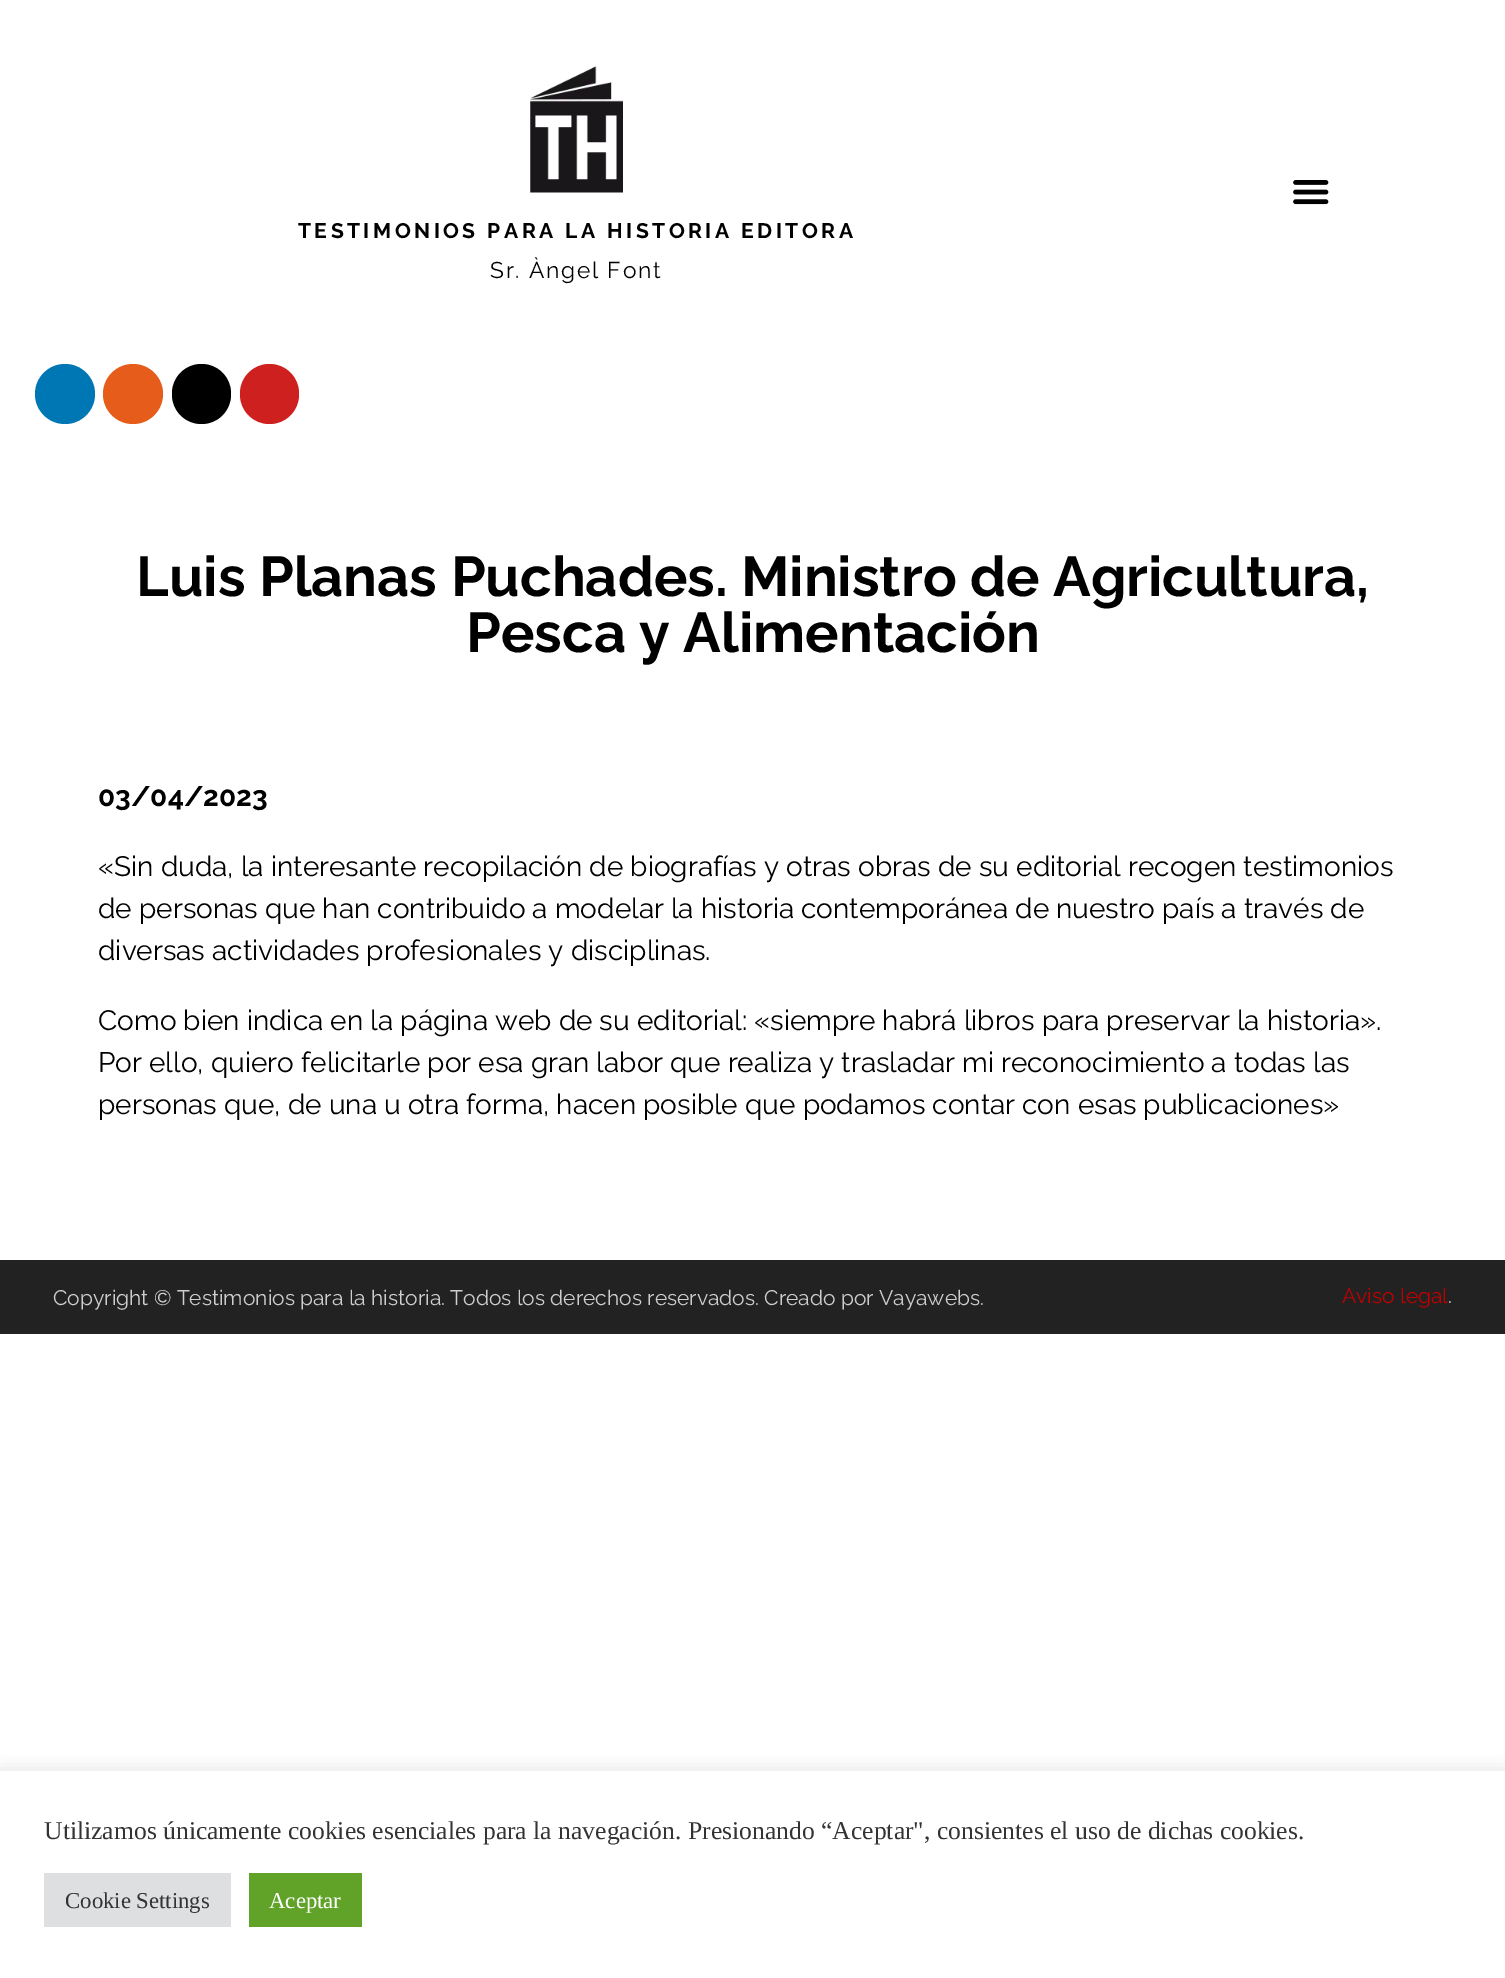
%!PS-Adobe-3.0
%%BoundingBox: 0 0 1505 1978
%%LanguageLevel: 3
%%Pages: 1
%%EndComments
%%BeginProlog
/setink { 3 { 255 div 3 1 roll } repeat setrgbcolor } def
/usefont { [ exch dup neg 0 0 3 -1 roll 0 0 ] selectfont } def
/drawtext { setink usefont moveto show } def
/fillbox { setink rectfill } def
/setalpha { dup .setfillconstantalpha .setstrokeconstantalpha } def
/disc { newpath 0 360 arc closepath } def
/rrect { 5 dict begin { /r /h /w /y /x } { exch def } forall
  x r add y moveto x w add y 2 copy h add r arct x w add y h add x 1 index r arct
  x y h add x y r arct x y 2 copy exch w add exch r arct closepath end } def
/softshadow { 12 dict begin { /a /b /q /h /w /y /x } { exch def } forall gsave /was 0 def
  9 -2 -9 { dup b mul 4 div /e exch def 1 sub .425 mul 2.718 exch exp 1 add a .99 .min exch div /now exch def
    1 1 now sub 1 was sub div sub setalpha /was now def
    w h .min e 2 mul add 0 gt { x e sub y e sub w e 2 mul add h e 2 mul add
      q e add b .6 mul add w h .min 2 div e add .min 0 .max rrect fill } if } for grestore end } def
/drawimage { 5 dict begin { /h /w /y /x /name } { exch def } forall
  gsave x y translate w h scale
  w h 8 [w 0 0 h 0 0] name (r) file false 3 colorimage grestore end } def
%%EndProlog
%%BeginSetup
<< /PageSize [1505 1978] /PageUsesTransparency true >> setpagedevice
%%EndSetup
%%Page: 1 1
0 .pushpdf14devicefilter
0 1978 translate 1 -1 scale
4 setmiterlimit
0 0 1505 1978 255 255 255 fillbox
(assets/img1.rgb) 1293 180 36 25 drawimage
(assets/img2.rgb) 530 66 93 127 drawimage
/Raleway-Thin 21 usefont
0 0 0 setink
298 238 moveto 3.5 0 (TESTIMONIOS PARA LA HISTORIA EDITORA) ashow
/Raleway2-Thin 22.75 usefont
490 278 moveto 1.75 0 (Sr. Àngel Font) ashow
0 119 181 setink
65 394 30 disc fill
230 93 27 setink
133 394 30 disc fill
0 0 0 setink
172 364 59 60 29.5 rrect fill
205 32 31 setink
240 364 59 60 29.5 rrect fill
(Luis Planas Puchades. Ministro de Agricultura,) 136 596 /Raleway-Thin 56 0 0 0 drawtext
(Pesca y Alimentación) 466 652 /Raleway-Thin 56 0 0 0 drawtext
(03/04/2023) 98 806 /Raleway-Thin 28 0 0 0 drawtext
(«Sin duda, la interesante recopilación de biografías y otras obras de su editorial recogen testimonios) 98 876 /Raleway2-Thin 28 0 0 0 drawtext
(de personas que han contribuido a modelar la historia contemporánea de nuestro país a través de) 98 918 /Raleway2-Thin 28 0 0 0 drawtext
(diversas actividades profesionales y disciplinas.) 98 960 /Raleway2-Thin 28 0 0 0 drawtext
(Como bien indica en la página web de su editorial: «siempre habrá libros para preservar la historia».) 98 1030 /Raleway2-Thin 28 0 0 0 drawtext
(Por ello, quiero felicitarle por esa gran labor que realiza y trasladar mi reconocimiento a todas las) 98 1072 /Raleway2-Thin 28 0 0 0 drawtext
(personas que, de una u otra forma, hacen posible que podamos contar con esas publicaciones») 98 1114 /Raleway2-Thin 28 0 0 0 drawtext
0 1260 1505 74 34 34 34 fillbox
(Copyright © Testimonios para la historia. Todos los derechos reservados. Creado por Vayawebs.) 53 1305 /Raleway2-Thin 21 206 206 206 drawtext
(Aviso legal) 1342 1303 /Raleway2-Thin 21 192 0 0 drawtext
(.) 1448 1303 /Raleway2-Thin 21 206 206 206 drawtext
gsave
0 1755 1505 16 rectclip
172 171 171 setink
0 1769 1505 209 0 9 0.3 softshadow
grestore
(Utilizamos únicamente cookies esenciales para la navegación. Presionando “Aceptar", consientes el uso de dichas cookies.) 44 1839 /LiberationSerif-Regular 25.65 51 51 51 drawtext
44 1873 187 54 222 223 224 fillbox
(Cookie Settings) 65 1908 /LiberationSerif-Regular 22.75 51 51 51 drawtext
249 1873 113 54 97 162 41 fillbox
(Aceptar) 269 1908 /LiberationSerif-Regular 22.75 255 255 255 drawtext
.poppdf14devicefilter showpage
%%EOF
